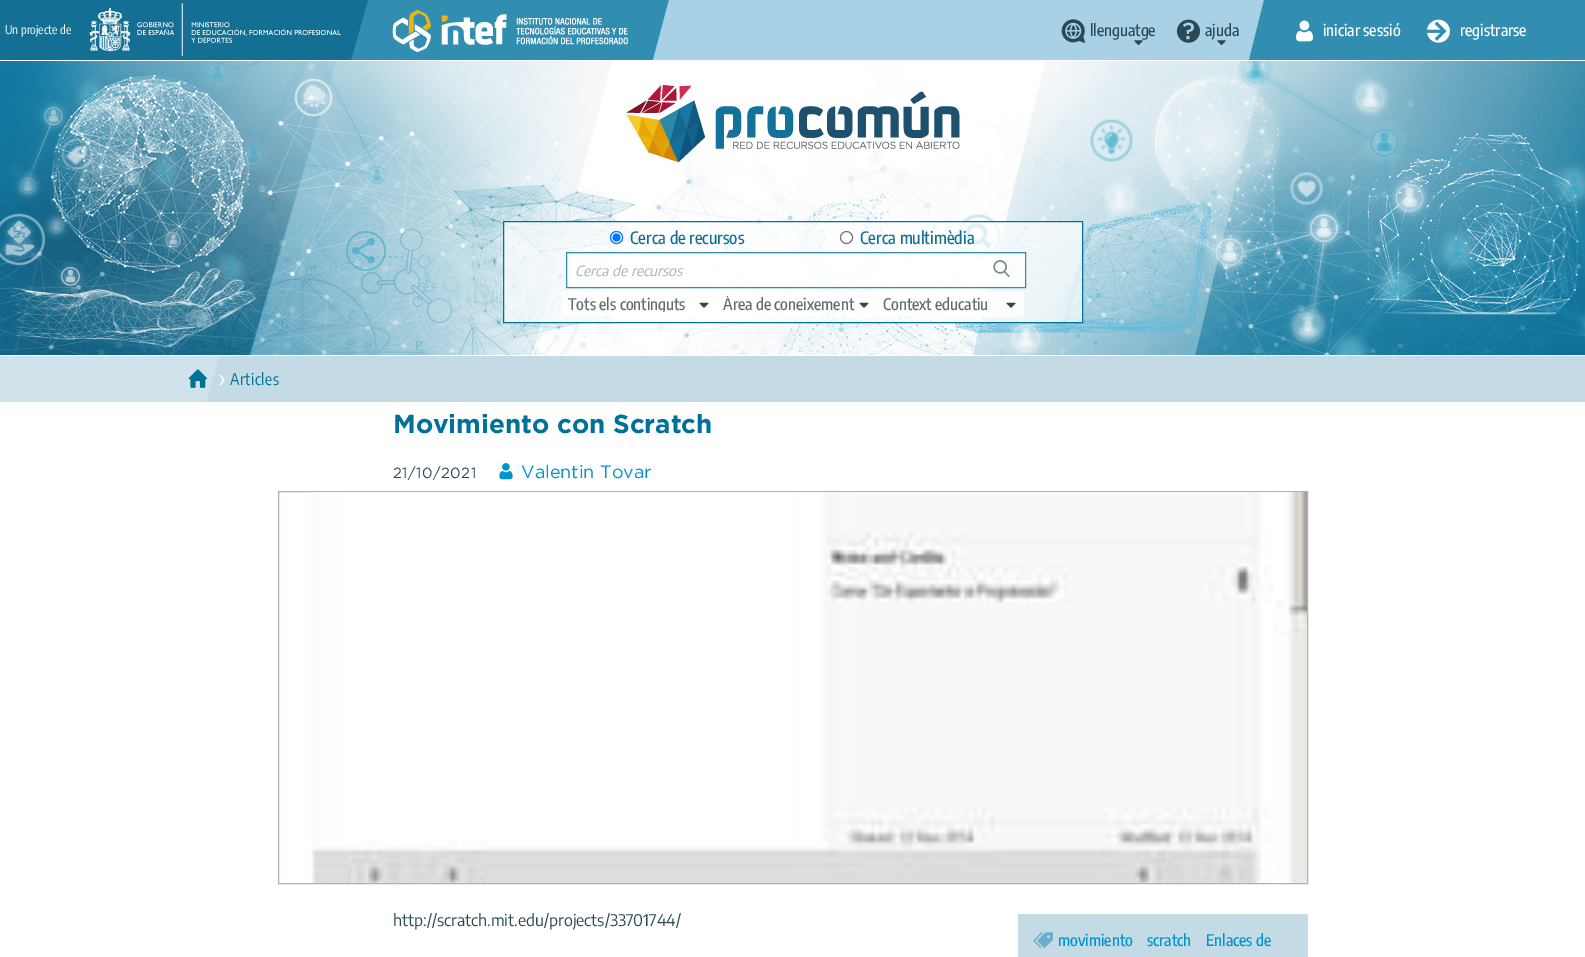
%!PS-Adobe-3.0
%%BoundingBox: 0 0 1585 957
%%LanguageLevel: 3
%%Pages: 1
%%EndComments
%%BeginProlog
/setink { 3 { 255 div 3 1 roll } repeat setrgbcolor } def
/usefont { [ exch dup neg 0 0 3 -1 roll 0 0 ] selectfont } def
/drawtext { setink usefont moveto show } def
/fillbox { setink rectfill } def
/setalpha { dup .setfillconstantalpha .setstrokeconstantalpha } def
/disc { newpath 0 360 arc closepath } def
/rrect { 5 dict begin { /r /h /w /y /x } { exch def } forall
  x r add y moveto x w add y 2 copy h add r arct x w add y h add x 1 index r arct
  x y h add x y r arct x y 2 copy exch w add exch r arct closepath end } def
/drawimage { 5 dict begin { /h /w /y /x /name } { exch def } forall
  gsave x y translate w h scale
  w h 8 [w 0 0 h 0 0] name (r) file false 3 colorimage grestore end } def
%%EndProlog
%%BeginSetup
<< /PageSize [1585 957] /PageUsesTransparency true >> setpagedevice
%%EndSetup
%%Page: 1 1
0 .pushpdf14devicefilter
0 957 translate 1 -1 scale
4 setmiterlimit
0 0 1585 957 255 255 255 fillbox
0 0 348 60 19 111 148 fillbox
(Un projecte de) 5 34 /EncodeSansCondensed-Regular 12 255 255 255 drawtext
(assets/img1.rgb) 89 3 252 53 drawimage
351 0 318 60 50 142 176 fillbox
19 111 148 setink
348 0 moveto 368 0 lineto 351 60 lineto 348 60 lineto closepath fill
(assets/img2.rgb) 392 10 236 42 drawimage
168 209 229 setink
673 60 moveto 653 60 lineto 669 0 lineto 673 0 lineto closepath fill
673 0 591 60 168 209 229 fillbox
(assets/img3.rgb) 1061 19 25 24 drawimage
(llenguatge) 1090 36 /EncodeSansCondensed-Medium 16 41 73 86 drawtext
(assets/img4.rgb) 1134 40 9 6 drawimage
(assets/img5.rgb) 1176 19 25 24 drawimage
(ajuda) 1205 36 /EncodeSansCondensed-Medium 16 41 73 86 drawtext
(assets/img4.rgb) 1217 40 9 6 drawimage
50 142 176 setink
1269 60 moveto 1249 60 lineto 1264 0 lineto 1269 0 lineto closepath fill
1269 0 316 60 50 142 176 fillbox
(assets/img6.rgb) 1296 20 17 22 drawimage
(iniciar sessió) 1323 36 /EncodeSansCondensed-Medium 16 255 255 255 drawtext
(assets/img7.rgb) 1427 19 23 24 drawimage
(registrarse) 1460 36 /EncodeSansCondensed-Medium 16 255 255 255 drawtext
(assets/img8.rgb) 0 61 73 294 drawimage
(assets/img9.rgb) 73 61 1440 294 drawimage
(assets/img10.rgb) 626 85 334 78 drawimage
0.7 setalpha
503.5 221.5 moveto 1082.5 221.5 lineto 1082.5 322.5 lineto 503.5 322.5 lineto closepath fill
1 setalpha
0 113 153 setink
503.5 221.5 moveto 1082.5 221.5 lineto 1082.5 322.5 lineto 503.5 322.5 lineto closepath stroke
255 255 255 setink
616.5 237.5 6 disc gsave fill grestore
0 117 255 setink
stroke
616.5 237.5 4 disc fill
(Cerca de recursos) 630 244 /EncodeSansCondensed-Medium 17 19 111 148 drawtext
118 118 118 setink
846.5 237.5 6 disc stroke
(Cerca multimèdia) 860 244 /EncodeSansCondensed-Medium 17 19 111 148 drawtext
0.8 setalpha
566 252 460 36 255 255 255 fillbox
0.06 setalpha
567 253 458 1 0 0 0 fillbox
0.8 setalpha
0 113 153 setink
566.5 252.5 459 35 rectstroke
1 setalpha
(Cerca de recursos) 575 276 /EncodeSans-Italic 14 173 173 173 drawtext
(assets/img11.rgb) 993 260 17 17 drawimage
0.8 setalpha
255 255 255 setink
562 291 155 26 4 rrect fill
gsave
568 296 129 16 rectclip
1 setalpha
(Tots els continguts) 568 310 /EncodeSansCondensed-Medium 16 97 108 109 drawtext
grestore
1 setalpha
(assets/img12.rgb) 699 302 10 6 drawimage
0.8 setalpha
717 291 160 26 4 rrect fill
gsave
723 296 134 16 rectclip
1 setalpha
(Àrea de coneixement) 723 310 /EncodeSansCondensed-Medium 16 97 108 109 drawtext
grestore
1 setalpha
(assets/img13.rgb) 859 302 10 6 drawimage
0.8 setalpha
877 291 147 26 4 rrect fill
1 setalpha
(Context educatiu) 883 310 /EncodeSansCondensed-Medium 16 97 108 109 drawtext
(assets/img14.rgb) 1006 302 10 6 drawimage
(assets/img15.rgb) 1513 61 72 294 drawimage
206 356 1379 46 196 219 229 fillbox
208 226 234 setink
-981 356 moveto 219 356 lineto 206 402 lineto -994 402 lineto closepath fill
(assets/img16.rgb) 188 369 19 19 drawimage
(assets/img17.rgb) 220 374 5 12 drawimage
/EncodeSansCondensed-Regular 16 usefont
0 113 153 setink
230 385 moveto 0.5 0 (Articles) ashow
(Movimiento con Scratch) 393 433 /Gotham-Bold 26 0 113 153 drawtext
/Gotham-Regular 14.75 usefont
41 73 86 setink
393 478 moveto 0.5 0 (21/10/2021) ashow
(assets/img18.rgb) 499 463 14 17 drawimage
(Valentin Tovar) 521 478 /Gotham-Regular 18 0 148 206 drawtext
169 181 181 setink
278.5 491.5 1029 392 rectstroke
(assets/img19.rgb) 311 492 996 391 drawimage
(http://scratch.mit.edu/projects/33701744/) 393 926 /EncodeSans-Regular 16 41 73 86 drawtext
1018 914 290 43 196 219 229 fillbox
(assets/img20.rgb) 1033 932 20 16 drawimage
(movimiento) 1058 946 /EncodeSansCondensed-Medium 16 0 148 206 drawtext
(scratch) 1147 946 /EncodeSansCondensed-Medium 16 0 148 206 drawtext
(Enlaces de) 1206 946 /EncodeSansCondensed-Medium 16 0 148 206 drawtext
.poppdf14devicefilter showpage
%%EOF
